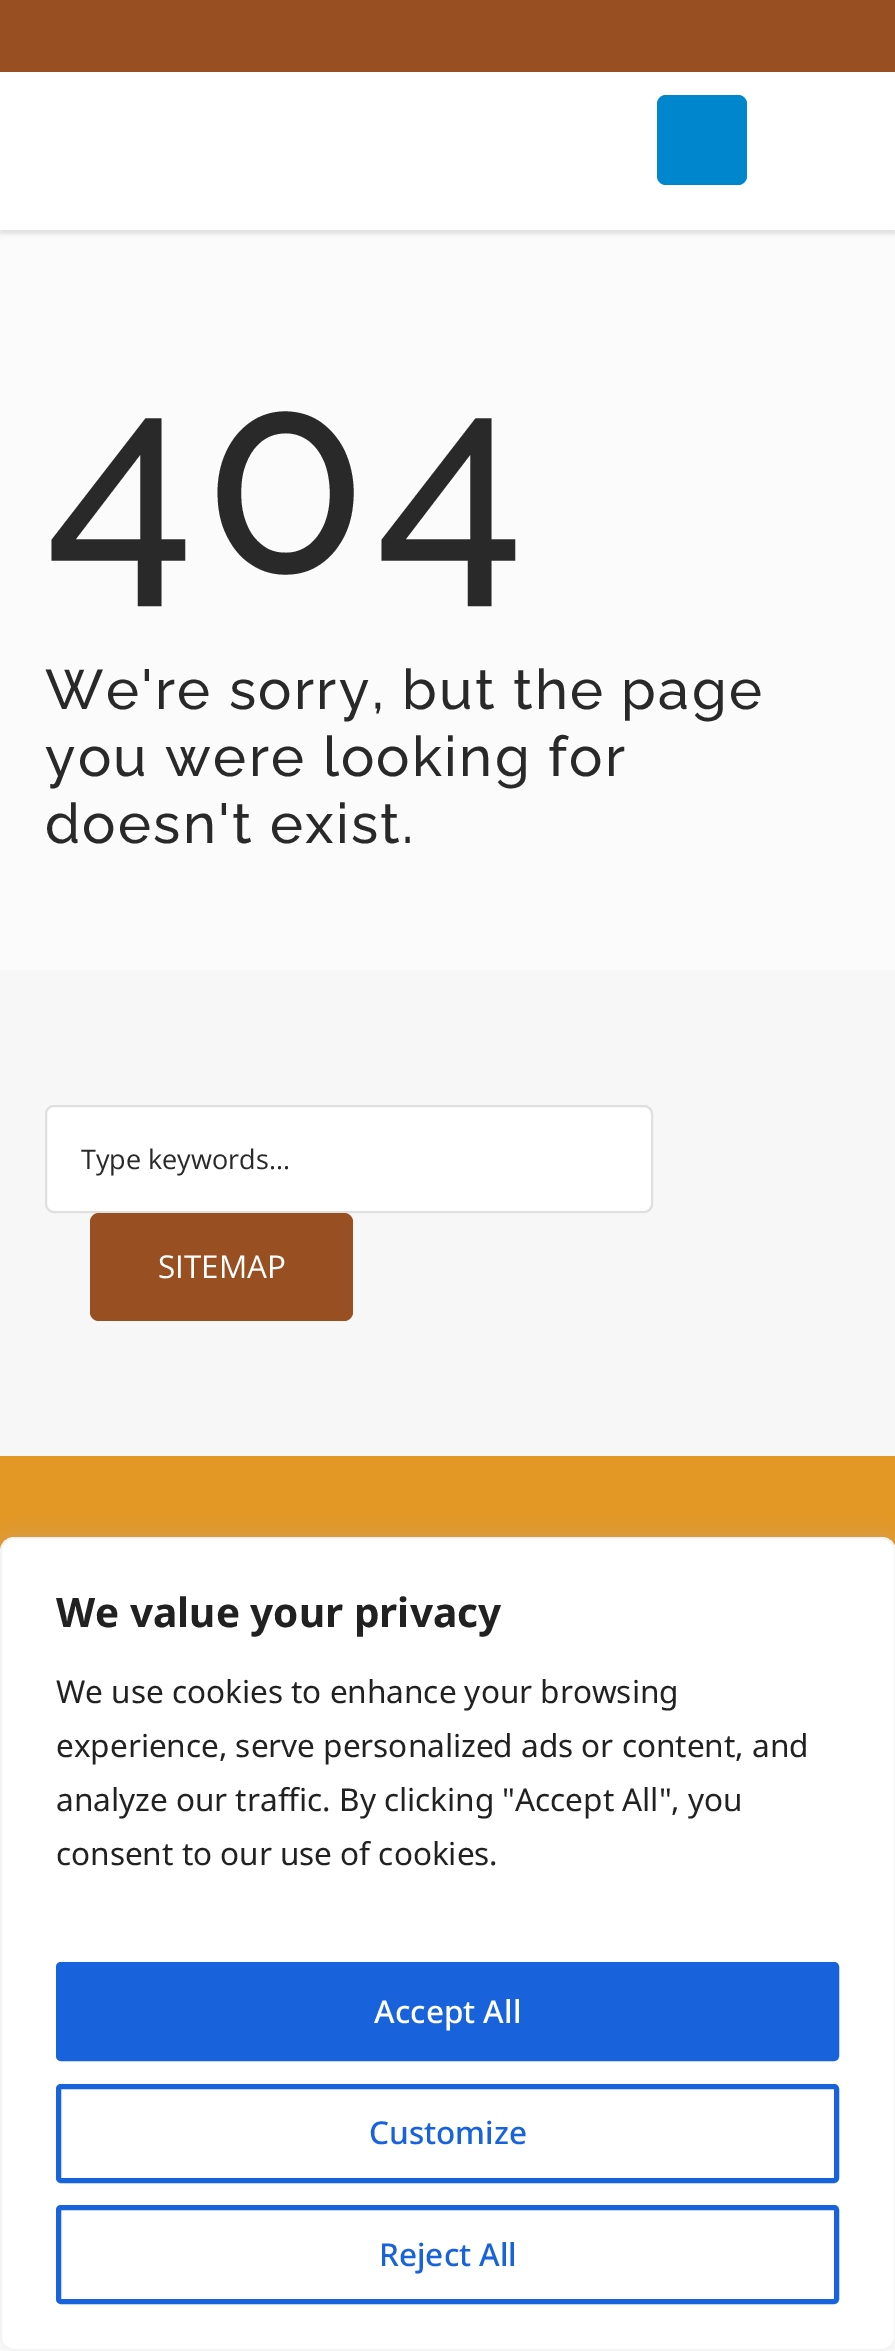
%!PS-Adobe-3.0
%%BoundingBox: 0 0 895 2351
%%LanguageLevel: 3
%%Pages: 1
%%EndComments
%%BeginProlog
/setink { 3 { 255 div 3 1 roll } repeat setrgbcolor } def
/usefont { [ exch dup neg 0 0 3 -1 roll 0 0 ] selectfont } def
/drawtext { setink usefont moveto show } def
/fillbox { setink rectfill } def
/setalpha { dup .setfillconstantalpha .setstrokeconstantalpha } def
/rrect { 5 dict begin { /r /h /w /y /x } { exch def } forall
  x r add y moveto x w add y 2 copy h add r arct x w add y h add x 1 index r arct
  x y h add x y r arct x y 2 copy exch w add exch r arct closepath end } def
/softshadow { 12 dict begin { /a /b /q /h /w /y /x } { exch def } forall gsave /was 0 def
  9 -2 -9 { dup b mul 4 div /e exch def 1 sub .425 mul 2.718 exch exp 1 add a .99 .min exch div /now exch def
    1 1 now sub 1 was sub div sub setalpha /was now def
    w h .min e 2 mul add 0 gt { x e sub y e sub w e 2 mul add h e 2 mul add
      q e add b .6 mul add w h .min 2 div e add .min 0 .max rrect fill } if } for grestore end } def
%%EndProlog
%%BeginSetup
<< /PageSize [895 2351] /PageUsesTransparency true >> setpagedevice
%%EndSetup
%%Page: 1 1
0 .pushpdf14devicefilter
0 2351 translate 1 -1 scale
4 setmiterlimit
0 0 895 2351 255 255 255 fillbox
0 230 895 740 251 251 251 fillbox
0 0 0 setink
0 5 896 229 0 2 0.1 softshadow
0 0 895 72 152 80 34 fillbox
0 72 895 158 255 255 255 fillbox
0 134 205 setink
657 95 90 90 9 rrect fill
0 970 895 486 247 247 247 fillbox
/Raleway-Medium 270 usefont
41 41 41 setink
45 572 moveto 7 0 (404) ashow
/Raleway-Medium 55.75 usefont
45 709 moveto 2.25 0 (We're sorry, but the page) ashow
45 776 moveto 2.25 0 (you were looking for) ashow
45 843 moveto 2.25 0 (doesn't exist.) ashow
255 255 255 setink
46 1106 606 106 8 rrect gsave fill grestore
223 223 223 setink
2 setlinewidth
stroke
(Type keywords...) 81 1169 /OpenSans-Regular 27 41 41 41 drawtext
152 80 34 setink
90 1213 263 108 9 rrect fill
(SITEMAP) 158 1278 /OpenSans-Regular 31.5 255 255 255 drawtext
0 1456 895 95 227 152 37 fillbox
172 171 171 setink
0 1535 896 814 14 11 0.3 softshadow
255 255 255 setink
1 1538 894 812 13 rrect gsave fill grestore
244 244 244 setink
stroke
(We value your privacy) 56 1627 /NotoSans-Bold 40.5 33 33 33 drawtext
(We use cookies to enhance your browsing) 56 1703 /NotoSans-Regular 31.5 33 33 33 drawtext
(experience, serve personalized ads or content, and) 56 1757 /NotoSans-Regular 31.5 33 33 33 drawtext
(analyze our traffic. By clicking "Accept All", you) 56 1811 /NotoSans-Regular 31.5 33 33 33 drawtext
(consent to our use of cookies.) 56 1865 /NotoSans-Regular 31.5 33 33 33 drawtext
24 99 220 setink
58.5 1964.5 778 94 2.5 rrect gsave fill grestore
5 setlinewidth
stroke
(Accept All) 374 2023 /NotoSans-Medium 31.5 255 255 255 drawtext
24 99 220 setink
58.5 2086.5 778 94 2.5 rrect stroke
(Customize) 369 2144 /NotoSans-Medium 31.5 24 99 220 drawtext
58.5 2207.5 778 94 2.5 rrect stroke
(Reject All) 379 2266 /NotoSans-Medium 31.5 24 99 220 drawtext
.poppdf14devicefilter showpage
%%EOF
